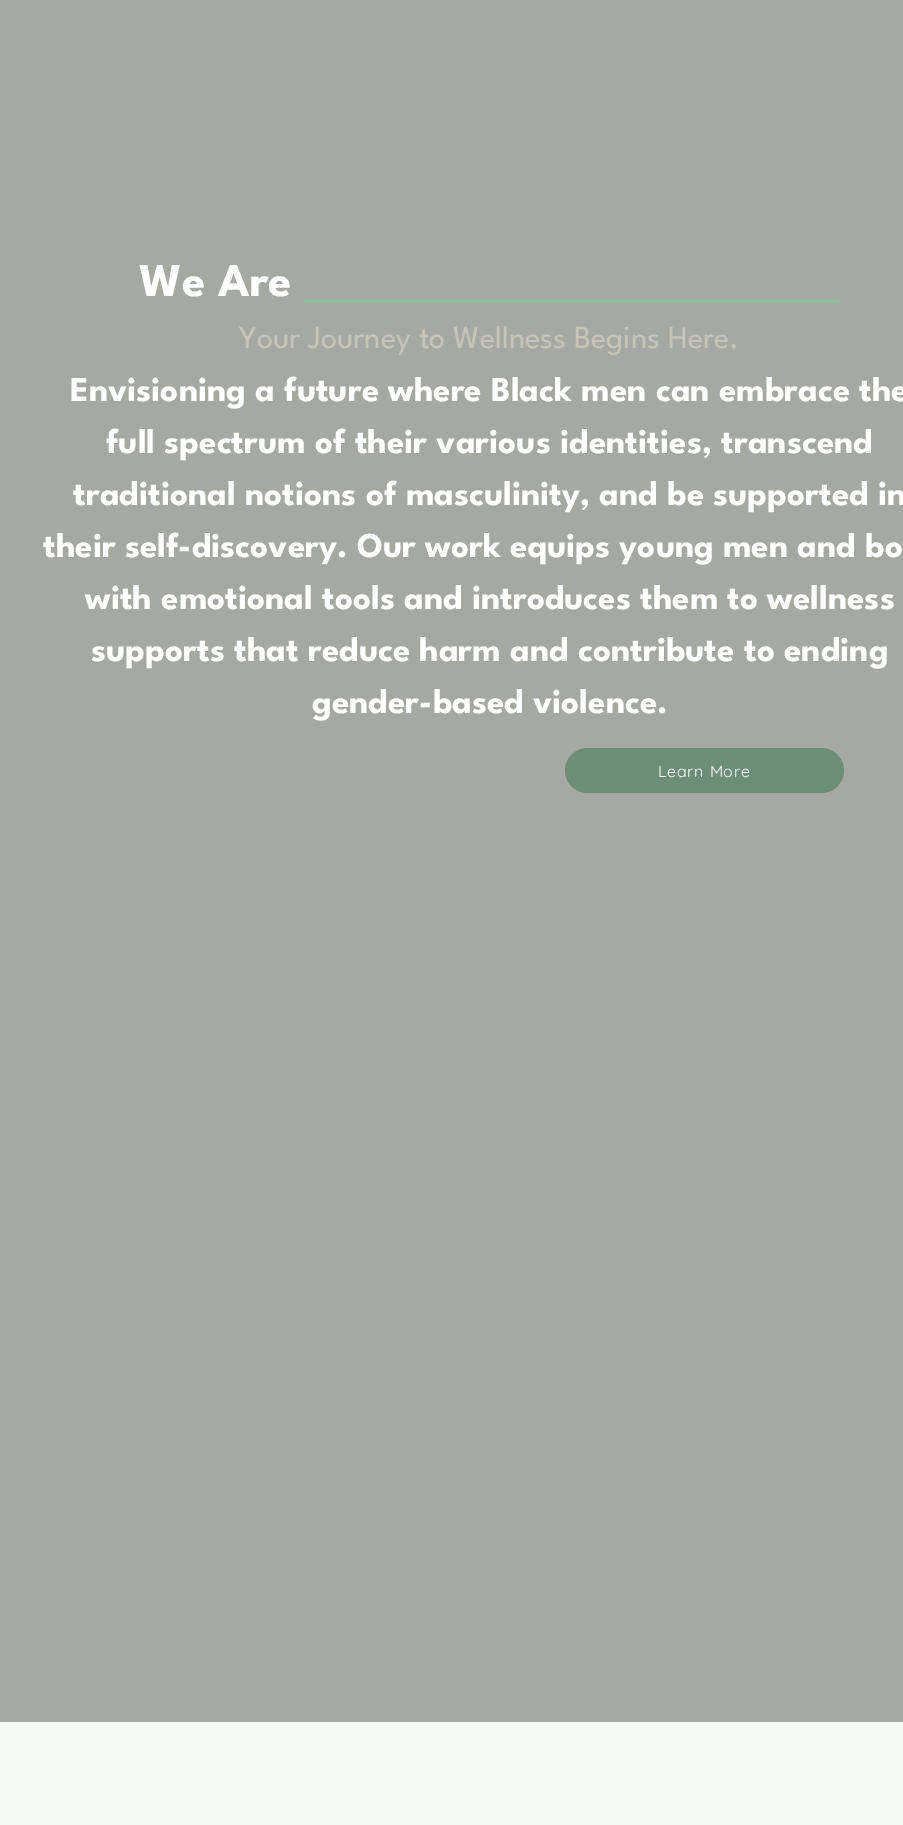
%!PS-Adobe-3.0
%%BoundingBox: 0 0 903 1825
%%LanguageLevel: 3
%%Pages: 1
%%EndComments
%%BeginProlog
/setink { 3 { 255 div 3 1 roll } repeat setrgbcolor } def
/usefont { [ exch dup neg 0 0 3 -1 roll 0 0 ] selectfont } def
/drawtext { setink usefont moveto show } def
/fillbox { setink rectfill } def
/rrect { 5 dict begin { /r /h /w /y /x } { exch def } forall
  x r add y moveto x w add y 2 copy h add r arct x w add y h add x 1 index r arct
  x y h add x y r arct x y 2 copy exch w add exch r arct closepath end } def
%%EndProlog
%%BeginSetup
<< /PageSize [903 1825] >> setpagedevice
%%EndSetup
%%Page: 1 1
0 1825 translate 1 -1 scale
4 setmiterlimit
0 0 903 1825 245 249 246 fillbox
0 0 903 1722 166 169 163 fillbox
(We Are) 139 296 /LeagueSpartan-Bold 47 255 255 255 drawtext
304 299 536 4 144 189 157 fillbox
(Your Journey to Wellness Begins Here.) 239 348 /LeagueSpartan-Regular 32 199 196 186 drawtext
(Envisioning a future where Black men can embrace the) 70 401 /LeagueSpartan-Bold 35 255 255 255 drawtext
(full spectrum of their various identities, transcend) 106 453 /LeagueSpartan-Bold 35 255 255 255 drawtext
(traditional notions of masculinity, and be supported in) 73 505 /LeagueSpartan-Bold 35 255 255 255 drawtext
(their self-discovery. Our work equips young men and bo) 43 557 /LeagueSpartan-Bold 35 255 255 255 drawtext
(with emotional tools and introduces them to wellness) 85 609 /LeagueSpartan-Bold 35 255 255 255 drawtext
(supports that reduce harm and contribute to ending) 91 661 /LeagueSpartan-Bold 35 255 255 255 drawtext
(gender-based violence.) 312 713 /LeagueSpartan-Bold 35 255 255 255 drawtext
108 142 118 setink
565 748 279 45 22.5 rrect fill
/Quicksand-Regular 16 usefont
255 255 255 setink
658 777 moveto 0.75 0 (Learn More) ashow
showpage
%%EOF
